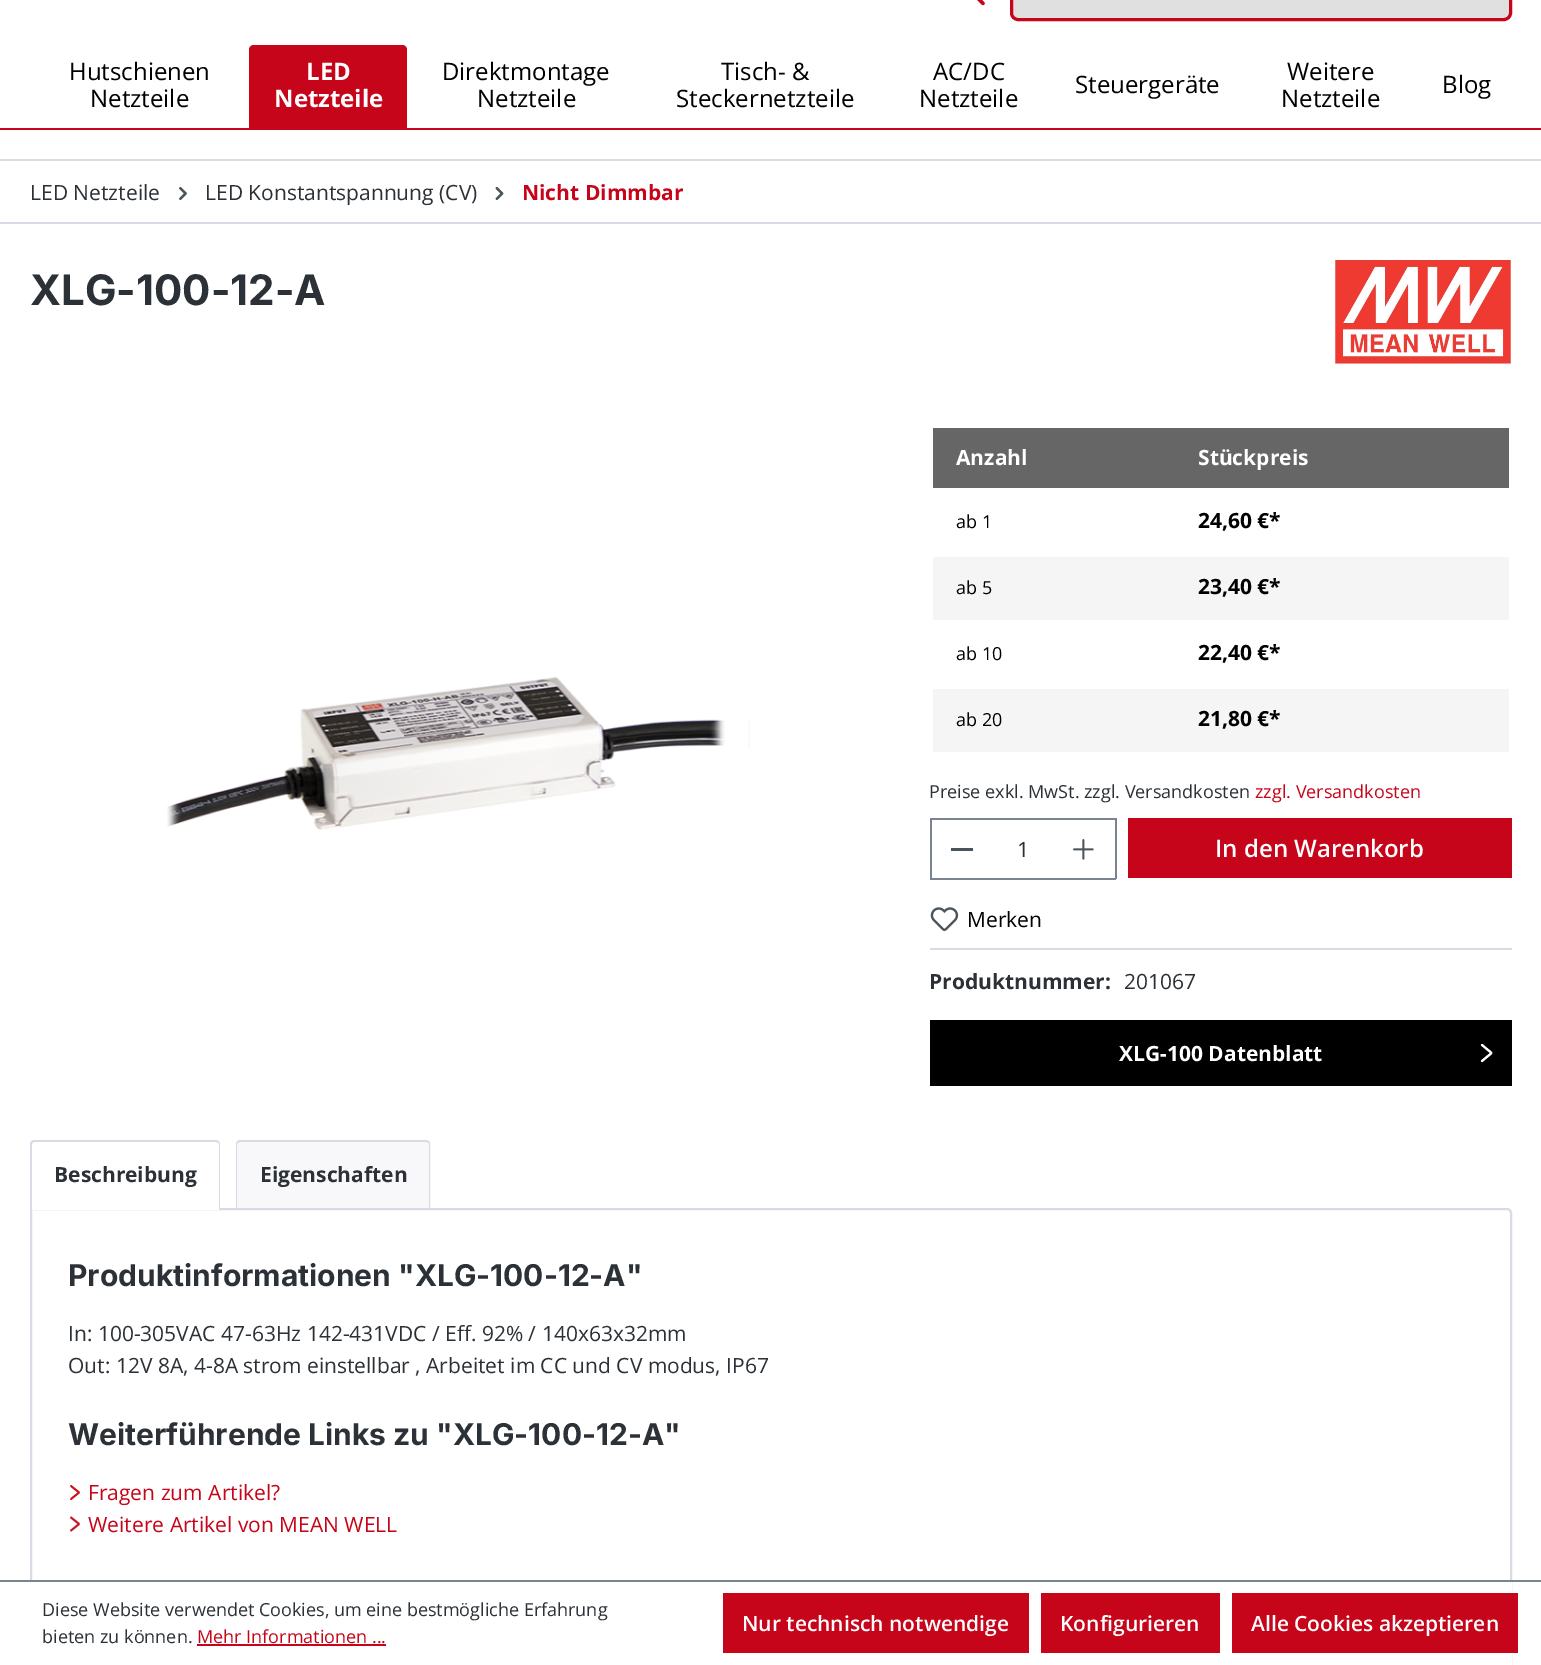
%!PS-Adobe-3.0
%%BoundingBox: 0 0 1541 1665
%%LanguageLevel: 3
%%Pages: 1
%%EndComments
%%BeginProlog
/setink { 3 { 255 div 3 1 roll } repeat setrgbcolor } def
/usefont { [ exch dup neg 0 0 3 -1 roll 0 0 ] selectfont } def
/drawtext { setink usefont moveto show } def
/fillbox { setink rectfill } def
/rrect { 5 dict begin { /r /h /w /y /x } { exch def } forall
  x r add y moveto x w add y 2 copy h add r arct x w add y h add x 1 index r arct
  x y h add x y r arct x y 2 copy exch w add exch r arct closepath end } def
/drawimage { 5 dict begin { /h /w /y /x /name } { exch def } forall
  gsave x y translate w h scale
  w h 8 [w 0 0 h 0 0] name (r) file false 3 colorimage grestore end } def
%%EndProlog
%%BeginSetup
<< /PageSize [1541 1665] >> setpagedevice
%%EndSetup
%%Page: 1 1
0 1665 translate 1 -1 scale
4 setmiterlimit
0 0 1541 1665 255 255 255 fillbox
(assets/img1.rgb) 977 0 8 6 drawimage
224 224 224 setink
1013 -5 496 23 5 rrect fill
198 5 26 setink
3 setlinewidth
1011.5 -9.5 499 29 6.5 rrect stroke
0 128 1541 2 198 5 26 fillbox
(Hutschienen) 69 80 /OpenSans-Regular 24 0 0 0 drawtext
(Netzteile) 90 107 /OpenSans-Regular 24 0 0 0 drawtext
198 5 26 setink
254 45 moveto 402 45 lineto 405 45 407 47 407 50 curveto 407 128 lineto 249 128 lineto 249 50 lineto 249 47 251 45 254 45 curveto closepath fill
(LED) 306 80 /OpenSans-Bold 24 255 255 255 drawtext
(Netzteile) 274 107 /OpenSans-Bold 24 255 255 255 drawtext
(Direktmontage) 442 80 /OpenSans-Regular 24 0 0 0 drawtext
(Netzteile) 477 107 /OpenSans-Regular 24 0 0 0 drawtext
(Tisch- &) 721 80 /OpenSans-Regular 24 0 0 0 drawtext
(Steckernetzteile) 676 107 /OpenSans-Regular 24 0 0 0 drawtext
(AC/DC) 933 80 /OpenSans-Regular 24 0 0 0 drawtext
(Netzteile) 919 107 /OpenSans-Regular 24 0 0 0 drawtext
(Steuergeräte) 1075 93 /OpenSans-Regular 24 0 0 0 drawtext
(Weitere) 1287 80 /OpenSans-Regular 24 0 0 0 drawtext
(Netzteile) 1281 107 /OpenSans-Regular 24 0 0 0 drawtext
(Blog) 1442 93 /OpenSans-Regular 24 0 0 0 drawtext
0 159 1541 2 218 218 229 fillbox
0 222 1541 2 218 218 229 fillbox
(LED Netzteile) 30 200 /OpenSans-Regular 21 43 49 54 drawtext
(assets/img2.rgb) 179 186 8 14 drawimage
(LED Konstantspannung \(CV\)) 205 200 /OpenSans-Regular 21 43 49 54 drawtext
(assets/img3.rgb) 495 187 9 13 drawimage
(Nicht Dimmbar) 522 200 /OpenSans-Bold 21 198 5 26 drawtext
(XLG-100-12-A) 30 305 /Inter-Bold 42 43 49 54 drawtext
(assets/img4.rgb) 1335 259 177 105 drawimage
(assets/img5.rgb) 167 676 583 155 drawimage
933 428 576 60 102 102 102 fillbox
(Anzahl) 956 465 /OpenSans-Bold 21 255 255 255 drawtext
(Stückpreis) 1198 465 /OpenSans-Bold 21 255 255 255 drawtext
(ab 1) 956 528 /OpenSans-Regular 18 0 0 0 drawtext
(24,60 €*) 1198 528 /OpenSans-Bold 21 0 0 0 drawtext
933 557 576 63 245 245 245 fillbox
(ab 5) 956 594 /OpenSans-Regular 18 0 0 0 drawtext
(23,40 €*) 1198 594 /OpenSans-Bold 21 0 0 0 drawtext
(ab 10) 956 660 /OpenSans-Regular 18 0 0 0 drawtext
(22,40 €*) 1198 660 /OpenSans-Bold 21 0 0 0 drawtext
933 689 576 63 245 245 245 fillbox
(ab 20) 956 726 /OpenSans-Regular 18 0 0 0 drawtext
(21,80 €*) 1198 726 /OpenSans-Bold 21 0 0 0 drawtext
(Preise exkl. MwSt. zzgl. Versandkosten) 929 798 /OpenSans-Regular 18 43 49 54 drawtext
(zzgl. Versandkosten) 1255 798 /OpenSans-Regular 18 198 5 26 drawtext
930 818 186 2 121 132 144 fillbox
930 878 125 2 121 132 144 fillbox
930 818 2 61 121 132 144 fillbox
951 848 22 3 74 84 91 fillbox
(1) 1017 857 /OpenSans-Regular 21 43 49 54 drawtext
1115 818 2 61 121 132 144 fillbox
1053 878 63 2 121 132 144 fillbox
(assets/img6.rgb) 1073 839 21 21 drawimage
1128 818 384 60 198 5 26 fillbox
(In den Warenkorb) 1215 857 /OpenSans-SemiBold 24 255 255 255 drawtext
930 948 582 2 218 218 229 fillbox
(assets/img7.rgb) 930 907 29 24 drawimage
(Merken) 967 927 /OpenSans-Regular 21 0 0 0 drawtext
(Produktnummer:) 929 989 /OpenSans-Bold 21 43 49 54 drawtext
(201067) 1124 989 /OpenSans-Regular 21 43 49 54 drawtext
930 1020 582 66 0 0 0 fillbox
(XLG-100 Datenblatt) 1119 1061 /OpenSans-Bold 21 255 255 255 drawtext
2.1 setlinewidth
1 setlinecap
1482 1045 moveto 1491 1052.5 lineto 1491 1053 1491 1053 1491 1053.5 curveto 1482 1061 lineto stroke
218 218 229 setink
34 1140 moveto 216 1140 lineto 218 1140 220 1142 220 1144 curveto 220 1208 lineto 30 1208 lineto 30 1144 lineto 30 1142 32 1140 34 1140 curveto closepath 34 1142 moveto 216 1142 lineto 218 1142 219 1143 219 1144 curveto 219 1208 lineto 32 1208 lineto 32 1144 lineto 32 1143 33 1142 34 1142 curveto closepath eofill
(Beschreibung) 54 1182 /OpenSans-Bold 21 43 49 54 drawtext
218 218 229 setink
2 setlinewidth
0 setlinecap
31 1209 moveto 1507 1209 lineto 1509 1209 1511 1211 1511 1213 curveto 1511 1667 lineto 1511 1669 1509 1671 1507 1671 curveto 35 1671 lineto 33 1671 31 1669 31 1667 curveto closepath stroke
32 1208 187 2 255 255 255 fillbox
248 248 250 setink
241 1140 moveto 426 1140 lineto 429 1140 431 1142 431 1145 curveto 431 1208 lineto 236 1208 lineto 236 1145 lineto 236 1142 238 1140 241 1140 curveto closepath fill
218 218 229 setink
240 1140 moveto 426 1140 lineto 428 1140 430 1142 430 1144 curveto 430 1208 lineto 236 1208 lineto 236 1144 lineto 236 1142 238 1140 240 1140 curveto closepath 240 1142 moveto 426 1142 lineto 428 1142 429 1143 429 1144 curveto 429 1208 lineto 237 1208 lineto 237 1144 lineto 237 1143 238 1142 240 1142 curveto closepath eofill
(Eigenschaften) 260 1182 /OpenSans-Bold 21 43 49 54 drawtext
(Produktinformationen "XLG-100-12-A") 68 1286 /Inter-Bold 30 43 49 54 drawtext
(In: 100-305VAC 47-63Hz 142-431VDC / Eff. 92% / 140x63x32mm) 68 1341 /OpenSans-Regular 21 43 49 54 drawtext
(Out: 12V 8A, 4-8A strom einstellbar , Arbeitet im CC und CV modus, IP67) 68 1373 /OpenSans-Regular 21 43 49 54 drawtext
(Weiterführende Links zu "XLG-100-12-A") 68 1445 /Inter-Bold 30 43 49 54 drawtext
201 21 33 setink
1.8 setlinewidth
1 setlinecap
71 1486 moveto 78.5 1492 lineto 79 1492.5 79 1492.5 78.5 1493 curveto 71 1499 lineto stroke
(Fragen zum Artikel?) 88 1500 /OpenSans-Regular 21 198 5 26 drawtext
201 21 33 setink
71 1517.5 moveto 78.5 1523.5 lineto 79 1524 79 1524 78.5 1524.5 curveto 71 1530.5 lineto stroke
(Weitere Artikel von MEAN WELL) 88 1532 /OpenSans-Regular 21 198 5 26 drawtext
30 1582 1482 83 255 255 255 fillbox
0 1580 1541 2 121 132 144 fillbox
(Diese Website verwendet Cookies, um eine bestmögliche Erfahrung) 42 1616 /OpenSans-Regular 18 43 49 54 drawtext
(bieten zu können.) 42 1643 /OpenSans-Regular 18 43 49 54 drawtext
(Mehr Informationen ...) 197 1643 /OpenSans-Regular 18 198 5 26 drawtext
197 1644 189 2 198 5 26 fillbox
723 1593 306 60 198 5 26 fillbox
(Nur technisch notwendige) 742 1631 /OpenSans-SemiBold 21 255 255 255 drawtext
1041 1593 179 60 198 5 26 fillbox
(Konfigurieren) 1060 1631 /OpenSans-SemiBold 21 255 255 255 drawtext
1232 1593 286 60 198 5 26 fillbox
(Alle Cookies akzeptieren) 1251 1631 /OpenSans-SemiBold 21 255 255 255 drawtext
showpage
%%EOF
